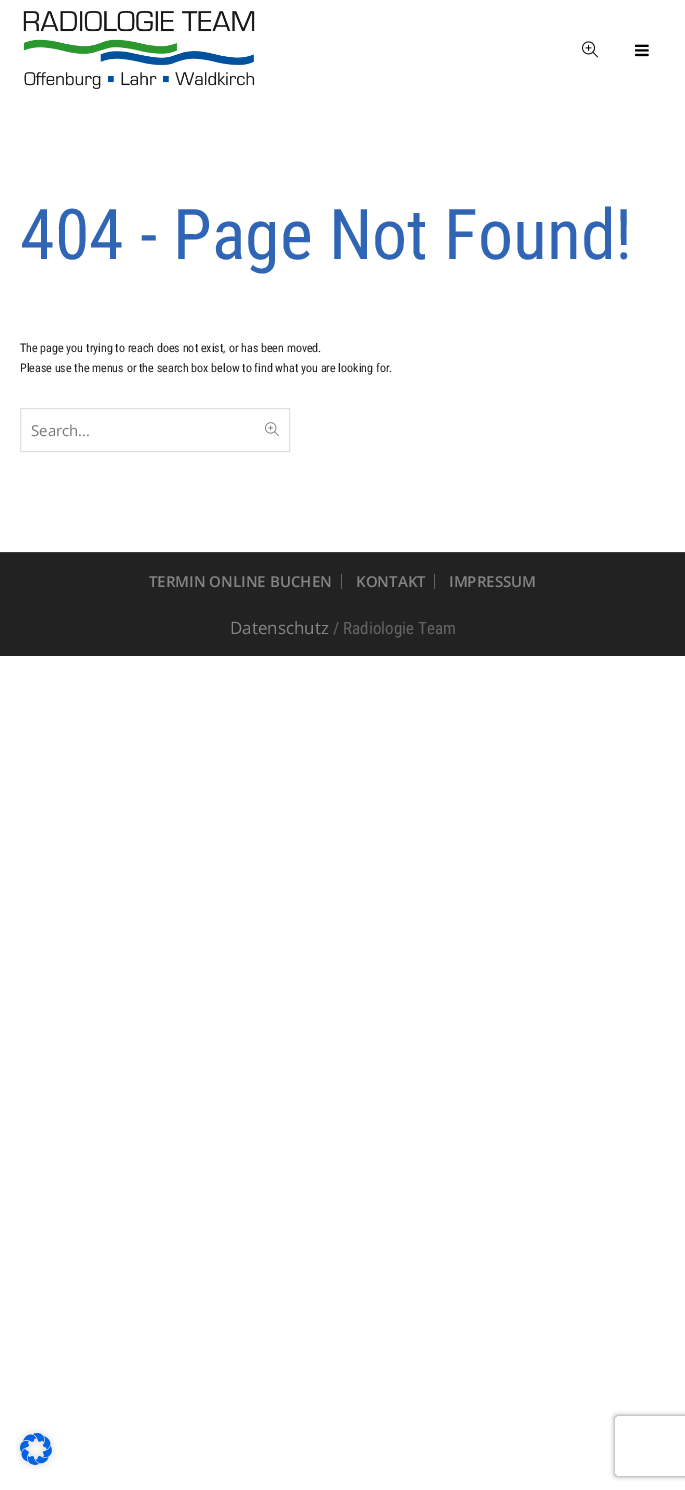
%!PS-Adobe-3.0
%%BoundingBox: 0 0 685 1490
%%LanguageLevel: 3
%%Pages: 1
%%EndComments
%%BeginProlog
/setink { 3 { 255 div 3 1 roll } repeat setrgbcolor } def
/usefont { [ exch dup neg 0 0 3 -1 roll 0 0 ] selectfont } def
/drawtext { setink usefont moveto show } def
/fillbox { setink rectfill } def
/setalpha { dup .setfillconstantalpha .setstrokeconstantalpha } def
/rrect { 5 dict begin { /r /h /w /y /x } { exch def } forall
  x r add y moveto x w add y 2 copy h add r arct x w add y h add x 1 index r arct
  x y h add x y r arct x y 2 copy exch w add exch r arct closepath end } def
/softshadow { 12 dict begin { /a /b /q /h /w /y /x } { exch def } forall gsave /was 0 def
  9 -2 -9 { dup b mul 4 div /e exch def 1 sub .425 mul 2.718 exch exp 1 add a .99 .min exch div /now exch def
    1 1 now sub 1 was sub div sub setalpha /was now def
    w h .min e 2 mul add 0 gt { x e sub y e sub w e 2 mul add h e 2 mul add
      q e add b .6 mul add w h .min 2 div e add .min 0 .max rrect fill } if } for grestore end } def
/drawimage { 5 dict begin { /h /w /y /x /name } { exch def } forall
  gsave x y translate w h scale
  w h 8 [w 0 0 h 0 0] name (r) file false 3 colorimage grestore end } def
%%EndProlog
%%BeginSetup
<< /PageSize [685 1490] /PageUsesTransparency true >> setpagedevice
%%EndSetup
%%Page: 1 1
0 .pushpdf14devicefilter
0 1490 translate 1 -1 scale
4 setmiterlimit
0 0 685 1490 255 255 255 fillbox
(assets/img1.rgb) 23 11 232 78 drawimage
(assets/img2.rgb) 582 41 16 17 drawimage
(assets/img3.rgb) 635 44 14 13 drawimage
(404 - Page Not Found!) 20 259 /RobotoCondensed-Regular 70 48 101 181 drawtext
(The page you trying to reach does not exist, or has been moved.) 20 352 /RobotoCondensed-Regular 12 34 34 34 drawtext
(Please use the menus or the search box below to find what you are looking for.) 20 372 /RobotoCondensed-Regular 12 34 34 34 drawtext
224 224 224 setink
20.5 408.5 269 43 rectstroke
(Search...) 31 436 /OpenSans-Regular 15 120 120 120 drawtext
(assets/img4.rgb) 265 422 14 15 drawimage
0 553 685 103 34 34 34 fillbox
0 552 685 1 61 61 61 fillbox
(TERMIN ONLINE BUCHEN) 149 587 /OpenSans-SemiBold 15 133 133 133 drawtext
341 574 1 15 100 100 100 fillbox
(KONTAKT) 356 587 /OpenSans-SemiBold 15 133 133 133 drawtext
434 574 1 15 100 100 100 fillbox
(IMPRESSUM) 449 587 /OpenSans-SemiBold 15 133 133 133 drawtext
(Datenschutz) 230 634 /OpenSans-Regular 17 133 133 133 drawtext
(/ Radiologie Team) 333 634 /RobotoCondensed-Regular 17 100 100 100 drawtext
(assets/img5.rgb) 16 1429 40 40 drawimage
gsave
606 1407 moveto 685 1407 lineto 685 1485 lineto 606 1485 lineto closepath 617 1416 moveto 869 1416 lineto 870 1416 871 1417 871 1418 curveto 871 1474 lineto 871 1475 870 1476 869 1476 curveto 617 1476 lineto 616 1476 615 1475 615 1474 curveto 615 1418 lineto 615 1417 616 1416 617 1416 curveto closepath eoclip newpath
128 128 128 setink
615 1416 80 60 2 2.5 1 softshadow
grestore
.poppdf14devicefilter showpage
%%EOF
